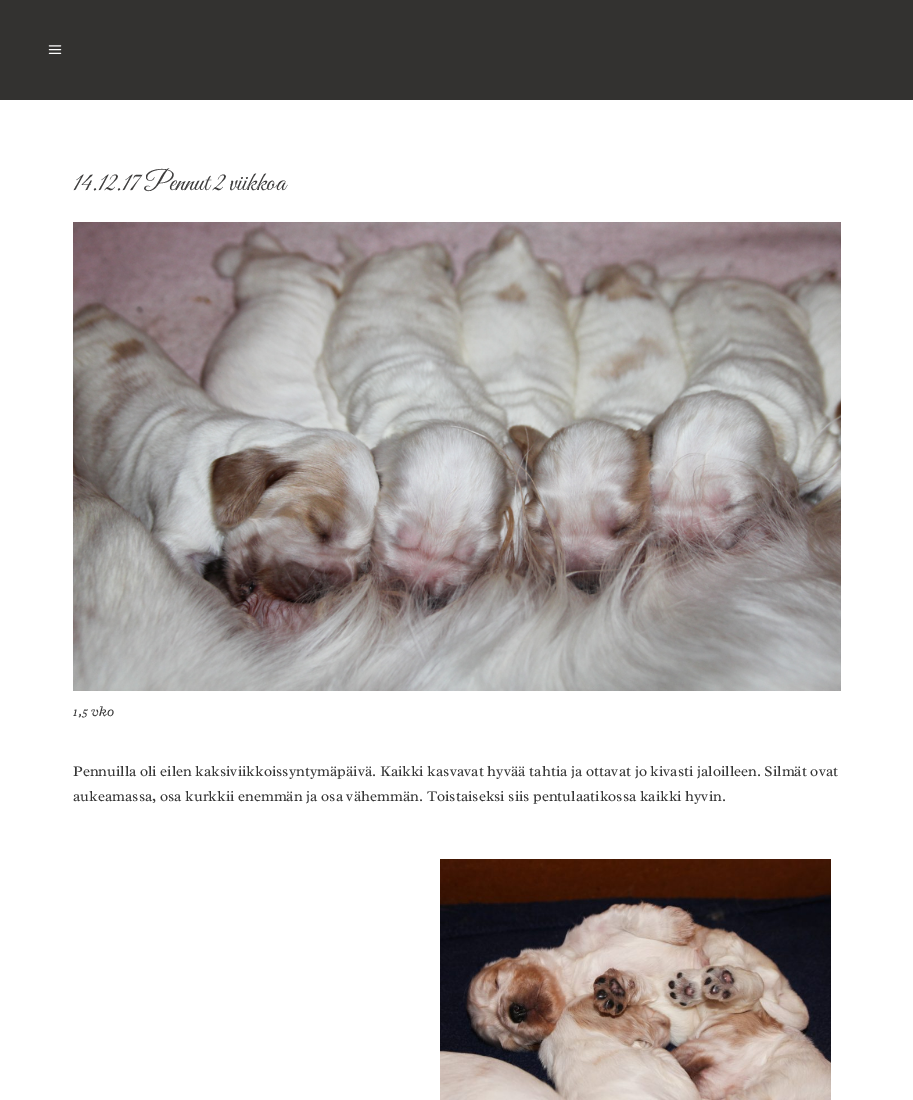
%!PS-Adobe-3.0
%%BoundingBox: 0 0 913 1100
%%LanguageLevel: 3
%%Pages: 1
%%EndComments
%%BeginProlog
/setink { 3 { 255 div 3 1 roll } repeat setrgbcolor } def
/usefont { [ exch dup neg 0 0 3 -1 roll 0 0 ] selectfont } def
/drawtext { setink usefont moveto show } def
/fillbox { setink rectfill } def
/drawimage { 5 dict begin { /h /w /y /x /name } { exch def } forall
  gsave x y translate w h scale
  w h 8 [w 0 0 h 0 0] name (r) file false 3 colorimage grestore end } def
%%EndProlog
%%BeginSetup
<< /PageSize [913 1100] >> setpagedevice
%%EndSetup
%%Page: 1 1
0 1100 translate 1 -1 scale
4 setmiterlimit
0 0 913 1100 255 255 255 fillbox
0 0 913 100 51 50 48 fillbox
(assets/img1.rgb) 48 45 14 9 drawimage
(14.12.17 Pennut 2 viikkoa) 73 190 /GreatVibes-Regular 27 62 61 61 drawtext
(assets/img2.rgb) 73 222 768 469 drawimage
(1,5 vko) 73 716 /Radley-Italic 15 53 53 53 drawtext
(Pennuilla oli eilen kaksiviikkoissyntymäpäivä. Kaikki kasvavat hyvää tahtia ja ottavat jo kivasti jaloilleen. Silmät ovat) 73 776 /Radley-Regular 15 53 53 53 drawtext
(aukeamassa, osa kurkkii enemmän ja osa vähemmän. Toistaiseksi siis pentulaatikossa kaikki hyvin.) 73 801 /Radley-Regular 15 53 53 53 drawtext
(assets/img3.rgb) 440 859 391 241 drawimage
showpage
%%EOF
